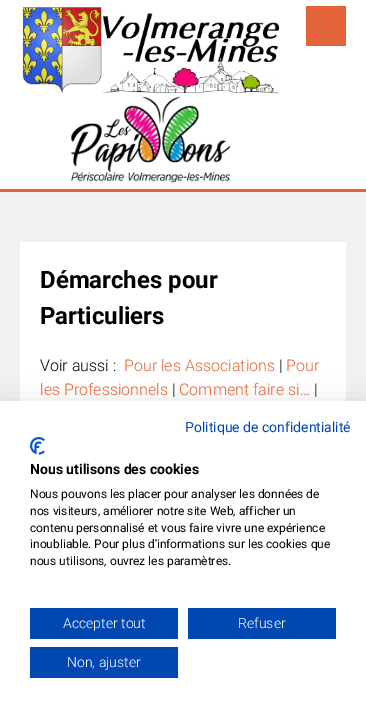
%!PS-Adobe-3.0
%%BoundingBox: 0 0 366 705
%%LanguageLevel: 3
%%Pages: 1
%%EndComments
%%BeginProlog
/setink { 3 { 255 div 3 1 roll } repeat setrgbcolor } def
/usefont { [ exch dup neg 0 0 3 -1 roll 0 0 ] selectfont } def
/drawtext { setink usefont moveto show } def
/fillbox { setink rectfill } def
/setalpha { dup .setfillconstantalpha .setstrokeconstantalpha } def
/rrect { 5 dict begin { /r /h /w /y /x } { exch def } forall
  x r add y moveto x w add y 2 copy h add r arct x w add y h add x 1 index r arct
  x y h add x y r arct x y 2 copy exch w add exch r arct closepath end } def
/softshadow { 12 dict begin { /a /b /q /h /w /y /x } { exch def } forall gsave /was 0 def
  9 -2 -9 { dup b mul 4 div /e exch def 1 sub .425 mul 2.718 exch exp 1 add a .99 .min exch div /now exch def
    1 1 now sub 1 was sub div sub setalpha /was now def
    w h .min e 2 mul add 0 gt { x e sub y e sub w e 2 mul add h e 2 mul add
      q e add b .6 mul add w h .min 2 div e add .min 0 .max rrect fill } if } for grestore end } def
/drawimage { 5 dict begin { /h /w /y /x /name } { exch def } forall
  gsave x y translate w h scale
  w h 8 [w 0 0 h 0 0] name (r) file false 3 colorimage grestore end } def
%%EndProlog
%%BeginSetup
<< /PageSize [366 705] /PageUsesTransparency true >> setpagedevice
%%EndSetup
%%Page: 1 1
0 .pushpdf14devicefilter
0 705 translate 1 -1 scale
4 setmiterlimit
0 0 366 705 241 241 241 fillbox
0 0 366 189 255 255 255 fillbox
0 189 366 3 230 100 50 fillbox
(assets/img1.rgb) 22 7 258 87 drawimage
306 6 40 40 227 99 59 fillbox
(assets/img2.rgb) 71 96 160 87 drawimage
20 242 326 159 255 255 255 fillbox
(Démarches pour) 40 288 /Roboto-Bold 24 0 0 0 drawtext
(Particuliers) 40 324 /Roboto-Bold 24 0 0 0 drawtext
(Voir aussi :) 40 371 /Roboto-Light 16 0 0 0 drawtext
(Pour les Associations) 124 371 /Roboto-Light 16 230 100 50 drawtext
(|) 279 371 /Roboto-Light 16 0 0 0 drawtext
(Pour) 286 371 /Roboto-Light 16 230 100 50 drawtext
(les Professionnels) 40 395 /Roboto-Light 16 230 100 50 drawtext
(|) 172 395 /Roboto-Light 16 0 0 0 drawtext
(Comment faire si…) 179 395 /Roboto-Light 16 230 100 50 drawtext
(|) 314 395 /Roboto-Light 16 0 0 0 drawtext
0 401 366 304 0 12 0.1 softshadow
0 401 366 304 255 255 255 fillbox
(Politique de confidentialité) 185 432 /Roboto-Regular 14 0 71 178 drawtext
(assets/img3.rgb) 30 437 15 18 drawimage
(Nous utilisons des cookies) 30 474 /Roboto-Bold 14 0 0 0 drawtext
(Nous pouvons les placer pour analyser les données de) 30 498 /Roboto-Regular 12 0 0 0 drawtext
(nos visiteurs, améliorer notre site Web, afficher un) 30 515 /Roboto-Regular 12 0 0 0 drawtext
(contenu personnalisé et vous faire vivre une expérience) 30 532 /Roboto-Regular 12 0 0 0 drawtext
(inoubliable. Pour plus d'informations sur les cookies que) 30 548 /Roboto-Regular 12 0 0 0 drawtext
(nous utilisons, ouvrez les paramètres.) 30 565 /Roboto-Regular 12 0 0 0 drawtext
30 608 148 31 0 71 178 fillbox
(Accepter tout) 63 628 /Roboto-Light 14 255 255 255 drawtext
188 608 148 31 0 71 178 fillbox
(Refuser) 238 628 /Roboto-Light 14 255 255 255 drawtext
30 647 148 31 0 71 178 fillbox
(Non, ajuster) 67 667 /Roboto-Light 14 255 255 255 drawtext
.poppdf14devicefilter showpage
%%EOF
